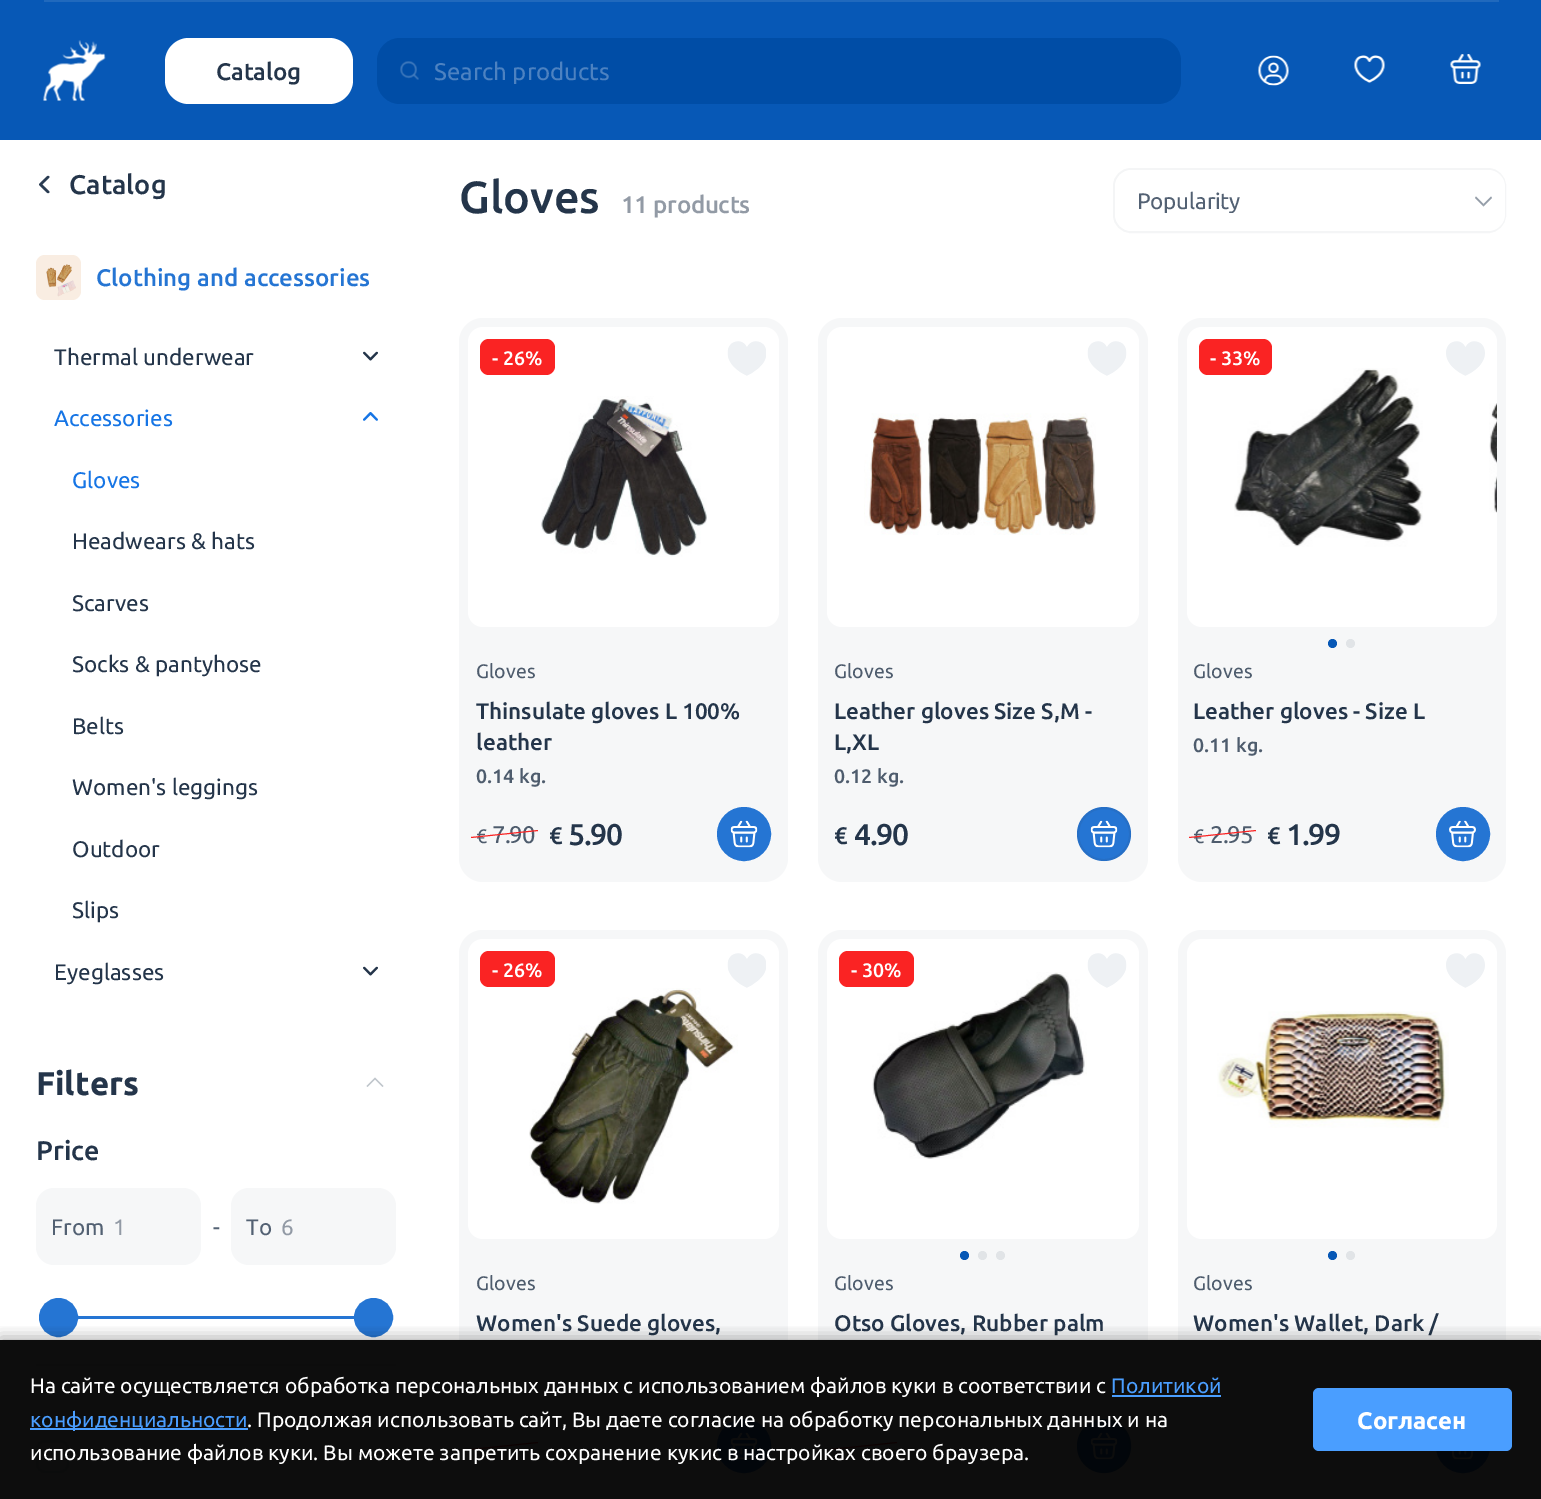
%!PS-Adobe-3.0
%%BoundingBox: 0 0 1541 1499
%%LanguageLevel: 3
%%Pages: 1
%%EndComments
%%BeginProlog
/setink { 3 { 255 div 3 1 roll } repeat setrgbcolor } def
/usefont { [ exch dup neg 0 0 3 -1 roll 0 0 ] selectfont } def
/drawtext { setink usefont moveto show } def
/fillbox { setink rectfill } def
/setalpha { dup .setfillconstantalpha .setstrokeconstantalpha } def
/disc { newpath 0 360 arc closepath } def
/rrect { 5 dict begin { /r /h /w /y /x } { exch def } forall
  x r add y moveto x w add y 2 copy h add r arct x w add y h add x 1 index r arct
  x y h add x y r arct x y 2 copy exch w add exch r arct closepath end } def
/softshadow { 12 dict begin { /a /b /q /h /w /y /x } { exch def } forall gsave /was 0 def
  9 -2 -9 { dup b mul 4 div /e exch def 1 sub .425 mul 2.718 exch exp 1 add a .99 .min exch div /now exch def
    1 1 now sub 1 was sub div sub setalpha /was now def
    w h .min e 2 mul add 0 gt { x e sub y e sub w e 2 mul add h e 2 mul add
      q e add b .6 mul add w h .min 2 div e add .min 0 .max rrect fill } if } for grestore end } def
/drawimage { 5 dict begin { /h /w /y /x /name } { exch def } forall
  gsave x y translate w h scale
  w h 8 [w 0 0 h 0 0] name (r) file false 3 colorimage grestore end } def
%%EndProlog
%%BeginSetup
<< /PageSize [1541 1499] /PageUsesTransparency true >> setpagedevice
%%EndSetup
%%Page: 1 1
0 .pushpdf14devicefilter
0 1499 translate 1 -1 scale
4 setmiterlimit
0 0 1541 1499 255 255 255 fillbox
0 0 1541 140 7 88 182 fillbox
44 0 1455 2 32 105 189 fillbox
(assets/img1.rgb) 43 40 63 61 drawimage
255 255 255 setink
165 38 188 66 24 rrect fill
/Ubuntu-Medium 24 usefont
36 53 74 setink
216 80 moveto -0.25 0 (Catalog) ashow
0 77 166 setink
377 38 804 66 23 rrect fill
(assets/img2.rgb) 400 61 19 19 drawimage
gsave
434 57 702 27 rectclip
(Search products) 434 80 /Ubuntu-Regular 24 77 130 193 drawtext
grestore
(assets/img3.rgb) 1258 55 31 31 drawimage
(assets/img4.rgb) 1354 55 31 28 drawimage
(assets/img5.rgb) 1450 54 31 30 drawimage
(assets/img6.rgb) 39 175 11 19 drawimage
(Catalog) 69 194 /Ubuntu-Medium 27 36 53 74 drawtext
249 237 226 setink
36 255 45 45 9 rrect fill
(assets/img7.rgb) 46 264 30 33 drawimage
(Clothing and accessories) 96 286 /Ubuntu-Medium 24 37 117 211 drawtext
(Thermal underwear) 54 365 /Ubuntu-Regular 22.5 36 53 74 drawtext
(assets/img8.rgb) 363 351 15 10 drawimage
(Accessories) 54 426 /Ubuntu-Regular 22.5 22 117 229 drawtext
(assets/img9.rgb) 363 412 15 9 drawimage
(Gloves) 72 488 /Ubuntu-Regular 22.5 22 117 229 drawtext
(Headwears & hats) 72 549 /Ubuntu-Regular 22.5 36 53 74 drawtext
(Scarves) 72 611 /Ubuntu-Regular 22.5 36 53 74 drawtext
(Socks & pantyhose) 72 672 /Ubuntu-Regular 22.5 36 53 74 drawtext
(Belts) 72 734 /Ubuntu-Regular 22.5 36 53 74 drawtext
(Women's leggings) 72 795 /Ubuntu-Regular 22.5 36 53 74 drawtext
(Outdoor) 72 857 /Ubuntu-Regular 22.5 36 53 74 drawtext
(Slips) 72 918 /Ubuntu-Regular 22.5 36 53 74 drawtext
(Eyeglasses) 54 980 /Ubuntu-Regular 22.5 36 53 74 drawtext
(assets/img8.rgb) 363 966 15 10 drawimage
(Filters) 36 1095 /Ubuntu-Bold 33 36 53 74 drawtext
191 197 203 setink
366.5 1086 moveto 375 1077.5 lineto 375 1079.5 lineto 367.5 1087 lineto closepath 375 1077.5 moveto 383.5 1086 lineto 382.5 1087 lineto 375 1079.5 lineto closepath fill
(Price) 36 1160 /Ubuntu-Medium 27 36 53 74 drawtext
246 247 248 setink
36 1188 165 77 18 rrect fill
(From) 51 1235 /Ubuntu-Regular 22.5 83 97 115 drawtext
(1) 113 1235 /Ubuntu-Regular 22.5 146 154 165 drawtext
(-) 213 1235 /Ubuntu-Regular 22.5 83 97 115 drawtext
246 247 248 setink
231 1188 165 77 18 rrect fill
(To) 246 1235 /Ubuntu-Regular 22.5 83 97 115 drawtext
(6) 281 1235 /Ubuntu-Regular 22.5 146 154 165 drawtext
77 1316 278 3 37 117 211 fillbox
58.5 1317.5 18.5 disc gsave fill grestore
2 setlinewidth
stroke
373.5 1317.5 18.5 disc gsave fill grestore
stroke
36 1364 360 2 238 241 244 fillbox
246 247 248 setink
36 1440 33 33 9 rrect fill
0.1 setalpha
42 60 82 setink
37 1441 31 31 8 rrect stroke
1 setalpha
(Gloves) 459 213 /Ubuntu-Medium 45 36 53 74 drawtext
/Ubuntu-Medium 24 usefont
146 154 165 setink
621 213 moveto -0.25 0 (11 products) ashow
244 245 246 setink
1114 169 391 63 17 rrect stroke
255 255 255 setink
1115 170 390 61 17 rrect fill
gsave
1137 188 330 25 rectclip
/Ubuntu-Regular 22.5 usefont
83 97 115 setink
1137 209 moveto -0.25 0 (Popularity) ashow
grestore
149 158 169 setink
1492 198 moveto 1483.5 206.5 lineto 1483.5 204 lineto 1491 196.5 lineto closepath fill
0.5 setalpha
42 60 82 setink
1483.5 206.5 moveto 1475 198 lineto 1476 196.5 lineto 1483.5 204 lineto closepath fill
1 setalpha
246 247 248 setink
459 318 329 564 24 rrect fill
255 255 255 setink
468 327 311 300 15 rrect fill
(assets/img10.rgb) 541 396 166 161 drawimage
250 35 35 setink
480 339 75 36 9 rrect fill
(- 26%) 492 365 /Ubuntu-Medium 19.5 255 255 255 drawtext
(assets/img11.rgb) 727 341 39 35 drawimage
(Gloves) 476 678 /Ubuntu-Regular 19.5 78 92 109 drawtext
gsave
476 695 295 63 rectclip
(Thinsulate gloves L 100%) 476 719 /Ubuntu-Medium 22.5 36 53 74 drawtext
grestore
(leather) 476 750 /Ubuntu-Medium 22.5 36 53 74 drawtext
(0.14 kg.) 476 783 /Ubuntu-Medium 19.5 78 92 109 drawtext
/Ubuntu-Regular 19.5 usefont
476 843 moveto -0.25 0 (€) ashow
/Ubuntu-Regular 24 usefont
492 843 moveto -1 0 (7.90) ashow
250 35 35 setink
471 837 moveto 538 830 lineto 538 831 lineto 471 838 lineto closepath fill
(€) 549 844 /Ubuntu-Medium 24 36 53 74 drawtext
/Ubuntu-Medium 30 usefont
568 845 moveto -1.5 0 (5.90) ashow
37 117 211 setink
744 834 26 disc gsave fill grestore
stroke
(assets/img12.rgb) 730 820 28 28 drawimage
246 247 248 setink
818 318 330 564 24 rrect fill
255 255 255 setink
827 327 312 300 15 rrect fill
(assets/img13.rgb) 864 413 232 122 drawimage
(assets/img14.rgb) 1087 341 40 35 drawimage
(Gloves) 834 678 /Ubuntu-Regular 19.5 78 92 109 drawtext
(Leather gloves Size S,M -) 834 719 /Ubuntu-Medium 22.5 36 53 74 drawtext
(L,XL) 834 750 /Ubuntu-Medium 22.5 36 53 74 drawtext
(0.12 kg.) 834 783 /Ubuntu-Medium 19.5 78 92 109 drawtext
(€) 834 844 /Ubuntu-Medium 24 36 53 74 drawtext
/Ubuntu-Medium 30 usefont
854 845 moveto -1.5 0 (4.90) ashow
37 117 211 setink
1104 834 27 disc fill
0.1 setalpha
42 60 82 setink
1104 834 26 disc stroke
1 setalpha
(assets/img12.rgb) 1090 820 28 28 drawimage
246 247 248 setink
1178 318 328 564 24 rrect fill
255 255 255 setink
1187 327 310 300 15 rrect fill
(assets/img15.rgb) 1234 368 189 179 drawimage
(assets/img16.rgb) 1489 403 8 110 drawimage
250 35 35 setink
1199 339 73 36 9 rrect fill
(- 33%) 1210 365 /Ubuntu-Medium 19.5 255 255 255 drawtext
(assets/img17.rgb) 1446 341 39 35 drawimage
7 88 182 setink
1332.5 643.5 4.5 disc fill
225 228 231 setink
1350.5 643.5 4.5 disc fill
(Gloves) 1193 678 /Ubuntu-Regular 19.5 78 92 109 drawtext
(Leather gloves - Size L) 1193 719 /Ubuntu-Medium 22.5 36 53 74 drawtext
(0.11 kg.) 1193 752 /Ubuntu-Medium 19.5 78 92 109 drawtext
/Ubuntu-Regular 19.5 usefont
1193 843 moveto -0.25 0 (€) ashow
/Ubuntu-Regular 24 usefont
1210 843 moveto -1 0 (2.95) ashow
250 35 35 setink
1189 837 moveto 1256 830 lineto 1256 831 lineto 1189 838 lineto closepath fill
(€) 1267 844 /Ubuntu-Medium 24 36 53 74 drawtext
/Ubuntu-Medium 30 usefont
1286 845 moveto -1.5 0 (1.99) ashow
37 117 211 setink
1463 834 26 disc gsave fill grestore
stroke
(assets/img18.rgb) 1449 820 27 28 drawimage
246 247 248 setink
459 930 329 564 24 rrect fill
255 255 255 setink
468 939 311 300 15 rrect fill
(assets/img19.rgb) 529 988 209 216 drawimage
250 35 35 setink
480 951 75 36 9 rrect fill
(- 26%) 492 977 /Ubuntu-Medium 19.5 255 255 255 drawtext
(assets/img11.rgb) 727 953 39 35 drawimage
(Gloves) 476 1290 /Ubuntu-Regular 19.5 78 92 109 drawtext
(Women's Suede gloves,) 476 1331 /Ubuntu-Medium 22.5 36 53 74 drawtext
250 35 35 setink
471 1449 moveto 538 1442 lineto 538 1443 lineto 471 1450 lineto closepath fill
37 117 211 setink
744 1446 26 disc gsave fill grestore
stroke
(assets/img12.rgb) 730 1432 28 28 drawimage
246 247 248 setink
818 930 330 564 24 rrect fill
255 255 255 setink
827 939 312 300 15 rrect fill
(assets/img20.rgb) 872 972 215 187 drawimage
250 35 35 setink
839 951 75 36 9 rrect fill
(- 30%) 851 977 /Ubuntu-Medium 19.5 255 255 255 drawtext
(assets/img14.rgb) 1087 953 40 35 drawimage
7 88 182 setink
964.5 1255.5 4.5 disc fill
225 228 231 setink
982.5 1255.5 4.5 disc fill
1000.5 1255.5 4.5 disc fill
(Gloves) 834 1290 /Ubuntu-Regular 19.5 78 92 109 drawtext
(Otso Gloves, Rubber palm) 834 1331 /Ubuntu-Medium 22.5 36 53 74 drawtext
250 35 35 setink
830 1449 moveto 897 1442 lineto 897 1443 lineto 830 1450 lineto closepath fill
37 117 211 setink
1104 1446 27 disc fill
0.1 setalpha
42 60 82 setink
1104 1446 26 disc stroke
1 setalpha
(assets/img12.rgb) 1090 1432 28 28 drawimage
246 247 248 setink
1178 930 328 564 24 rrect fill
255 255 255 setink
1187 939 310 300 15 rrect fill
(assets/img21.rgb) 1217 1011 232 117 drawimage
(assets/img17.rgb) 1446 953 39 35 drawimage
7 88 182 setink
1332.5 1255.5 4.5 disc fill
225 228 231 setink
1350.5 1255.5 4.5 disc fill
(Gloves) 1193 1290 /Ubuntu-Regular 19.5 78 92 109 drawtext
(Women's Wallet, Dark /) 1193 1331 /Ubuntu-Medium 22.5 36 53 74 drawtext
37 117 211 setink
1463 1446 26 disc gsave fill grestore
stroke
(assets/img22.rgb) 1451 1451 23 9 drawimage
gsave
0 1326 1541 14 rectclip
0 0 0 setink
0 1337 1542 160 0 7.5 0.3 softshadow
grestore
0.95 setalpha
0 1340 1541 159 0 0 0 fillbox
1 setalpha
(На сайте осуществляется обработка персональных данных с использованием файлов куки в соответствии с) 30 1393 /Ubuntu-Regular 21 255 255 255 drawtext
(Политикой) 1111 1393 /Ubuntu-Regular 21 74 158 255 drawtext
1112 1395 109 2 74 158 255 fillbox
30 1428 218 2 74 158 255 fillbox
(конфиденциальности) 30 1427 /Ubuntu-Regular 21 74 158 255 drawtext
(. Продолжая использовать сайт, Вы даете согласие на обработку персональных данных и на) 247 1427 /Ubuntu-Regular 21 255 255 255 drawtext
(использование файлов куки. Вы можете запретить сохранение кукис в настройках своего браузера.) 30 1460 /Ubuntu-Regular 21 255 255 255 drawtext
74 158 255 setink
1313 1388 199 63 6 rrect fill
(Согласен) 1357 1429 /Ubuntu-Bold 24 255 255 255 drawtext
.poppdf14devicefilter showpage
%%EOF
